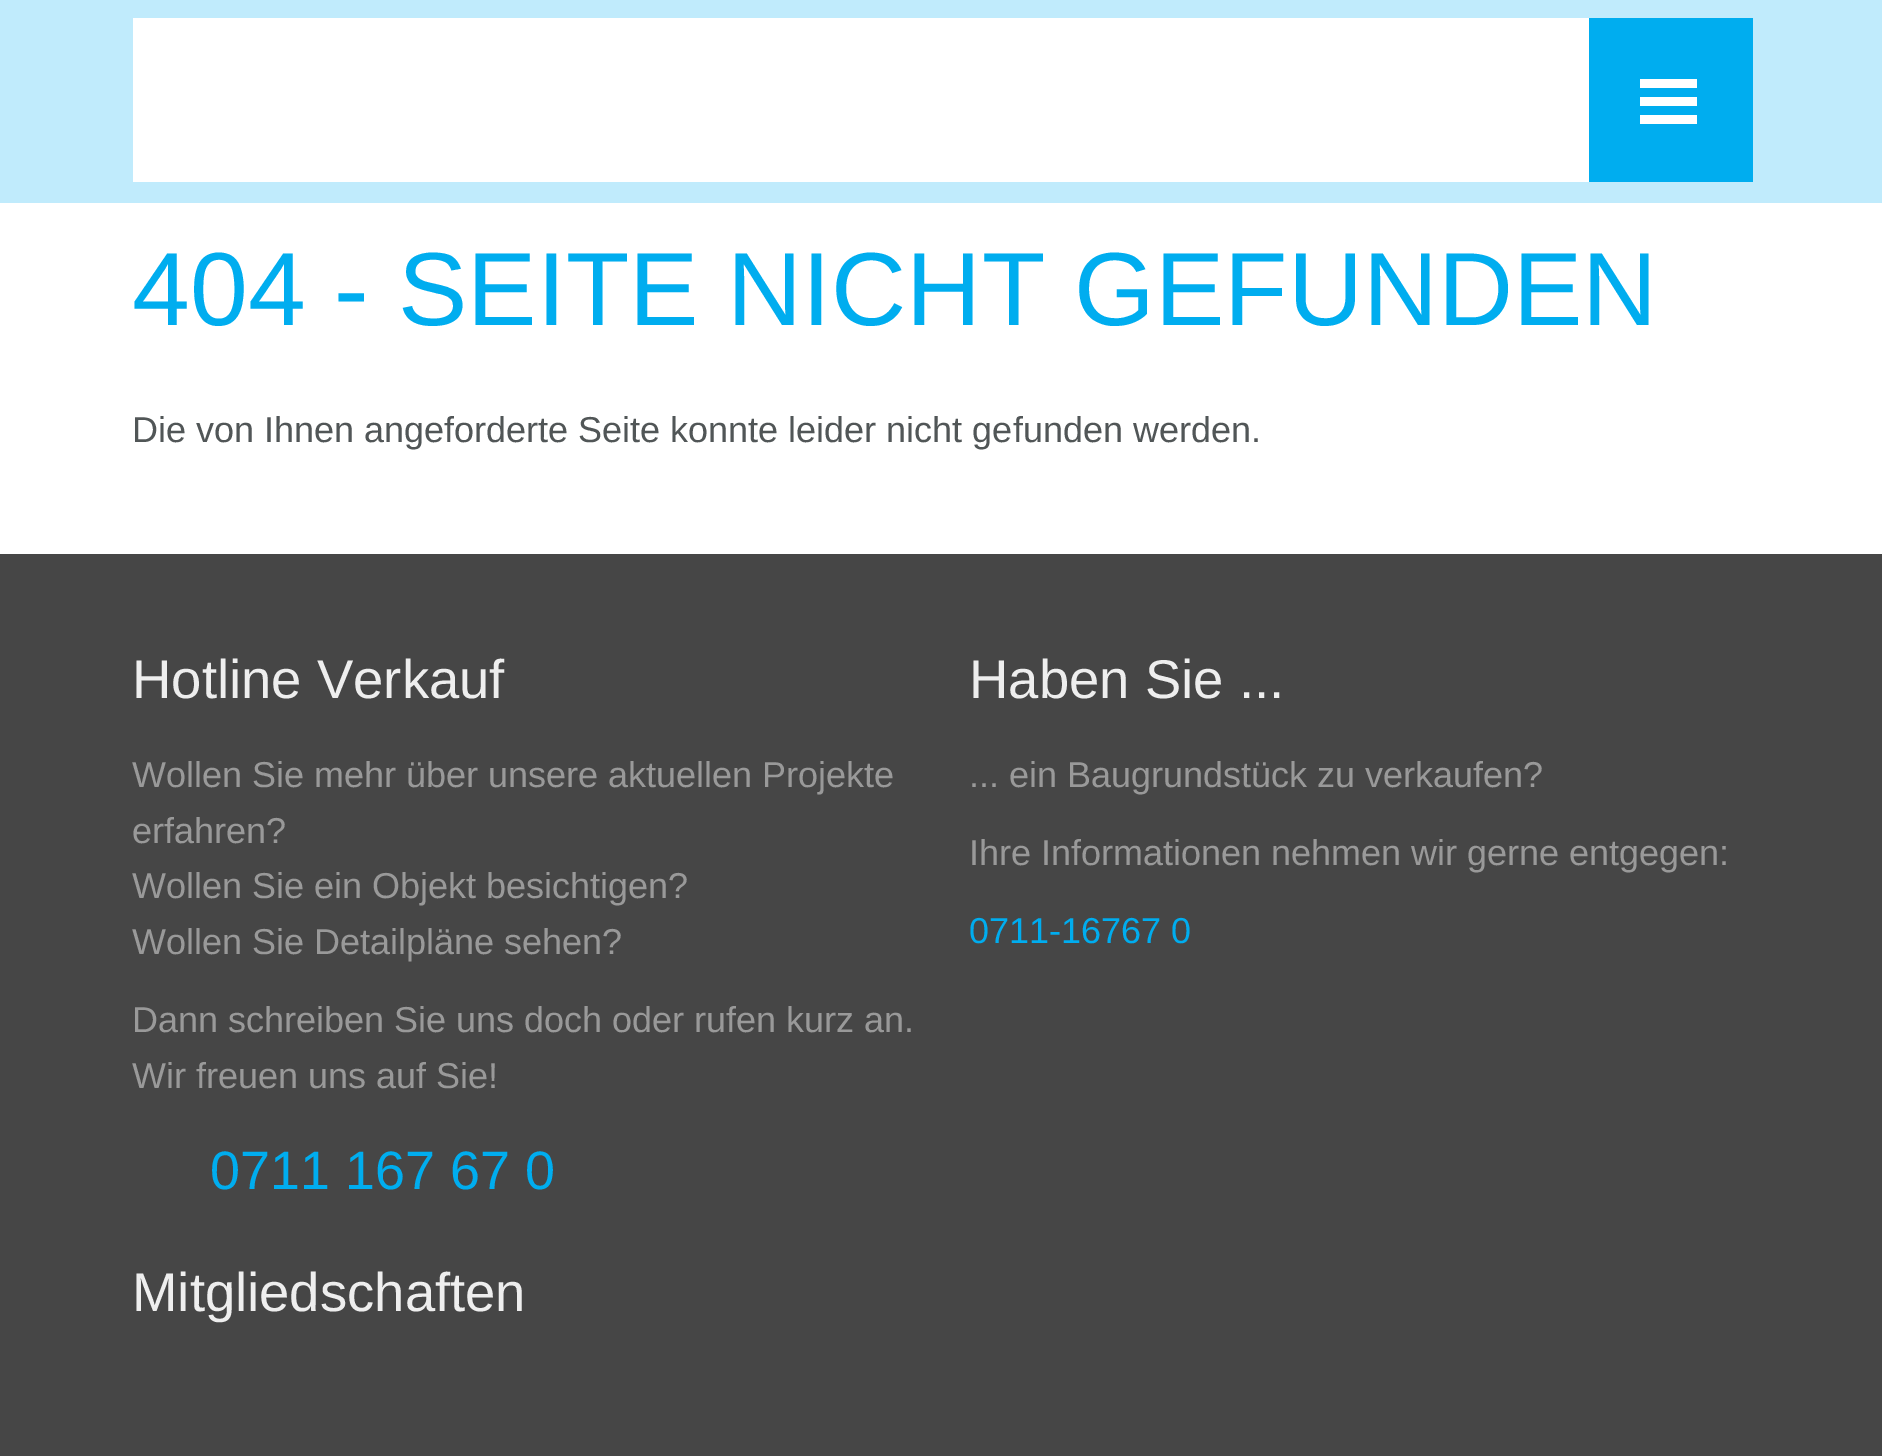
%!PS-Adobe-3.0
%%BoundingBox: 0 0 1882 1456
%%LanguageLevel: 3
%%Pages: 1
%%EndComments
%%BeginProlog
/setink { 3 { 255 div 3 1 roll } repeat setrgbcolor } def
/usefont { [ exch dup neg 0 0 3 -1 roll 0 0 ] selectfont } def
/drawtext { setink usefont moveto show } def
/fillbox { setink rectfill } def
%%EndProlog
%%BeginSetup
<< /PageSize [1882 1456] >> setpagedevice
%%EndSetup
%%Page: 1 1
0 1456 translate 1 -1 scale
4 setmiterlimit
0 0 1882 1456 255 255 255 fillbox
0 0 1882 203 192 235 252 fillbox
133 18 1456 164 255 255 255 fillbox
1589 18 164 164 0 173 239 fillbox
1640 79 57 9 255 255 255 fillbox
1640 97 57 9 255 255 255 fillbox
1640 115 57 9 255 255 255 fillbox
(404 - SEITE NICHT GEFUNDEN) 132 325 /LiberationSans-Regular 104 0 173 239 drawtext
(Die von Ihnen angeforderte Seite konnte leider nicht gefunden werden.) 132 442 /LiberationSans-Regular 36 81 86 87 drawtext
0 554 1882 902 70 70 70 fillbox
(Hotline Verkauf) 132 698 /LiberationSans-Regular 54.5 238 238 238 drawtext
(Wollen Sie mehr über unsere aktuellen Projekte) 132 787 /LiberationSans-Regular 36 153 153 153 drawtext
(erfahren?) 132 843 /LiberationSans-Regular 36 153 153 153 drawtext
(Wollen Sie ein Objekt besichtigen?) 132 898 /LiberationSans-Regular 36 153 153 153 drawtext
(Wollen Sie Detailpläne sehen?) 132 954 /LiberationSans-Regular 36 153 153 153 drawtext
(Dann schreiben Sie uns doch oder rufen kurz an.) 132 1032 /LiberationSans-Regular 36 153 153 153 drawtext
(Wir freuen uns auf Sie!) 132 1088 /LiberationSans-Regular 36 153 153 153 drawtext
(0711 167 67 0) 210 1189 /LiberationSans-Regular 54 0 173 239 drawtext
(Haben Sie ...) 969 698 /LiberationSans-Regular 54.5 238 238 238 drawtext
(... ein Baugrundstück zu verkaufen?) 969 787 /LiberationSans-Regular 36 153 153 153 drawtext
(Ihre Informationen nehmen wir gerne entgegen:) 969 865 /LiberationSans-Regular 36 153 153 153 drawtext
(0711-16767 0) 969 943 /LiberationSans-Regular 36 0 173 239 drawtext
(Mitgliedschaften) 132 1311 /LiberationSans-Regular 54.5 238 238 238 drawtext
showpage
%%EOF
